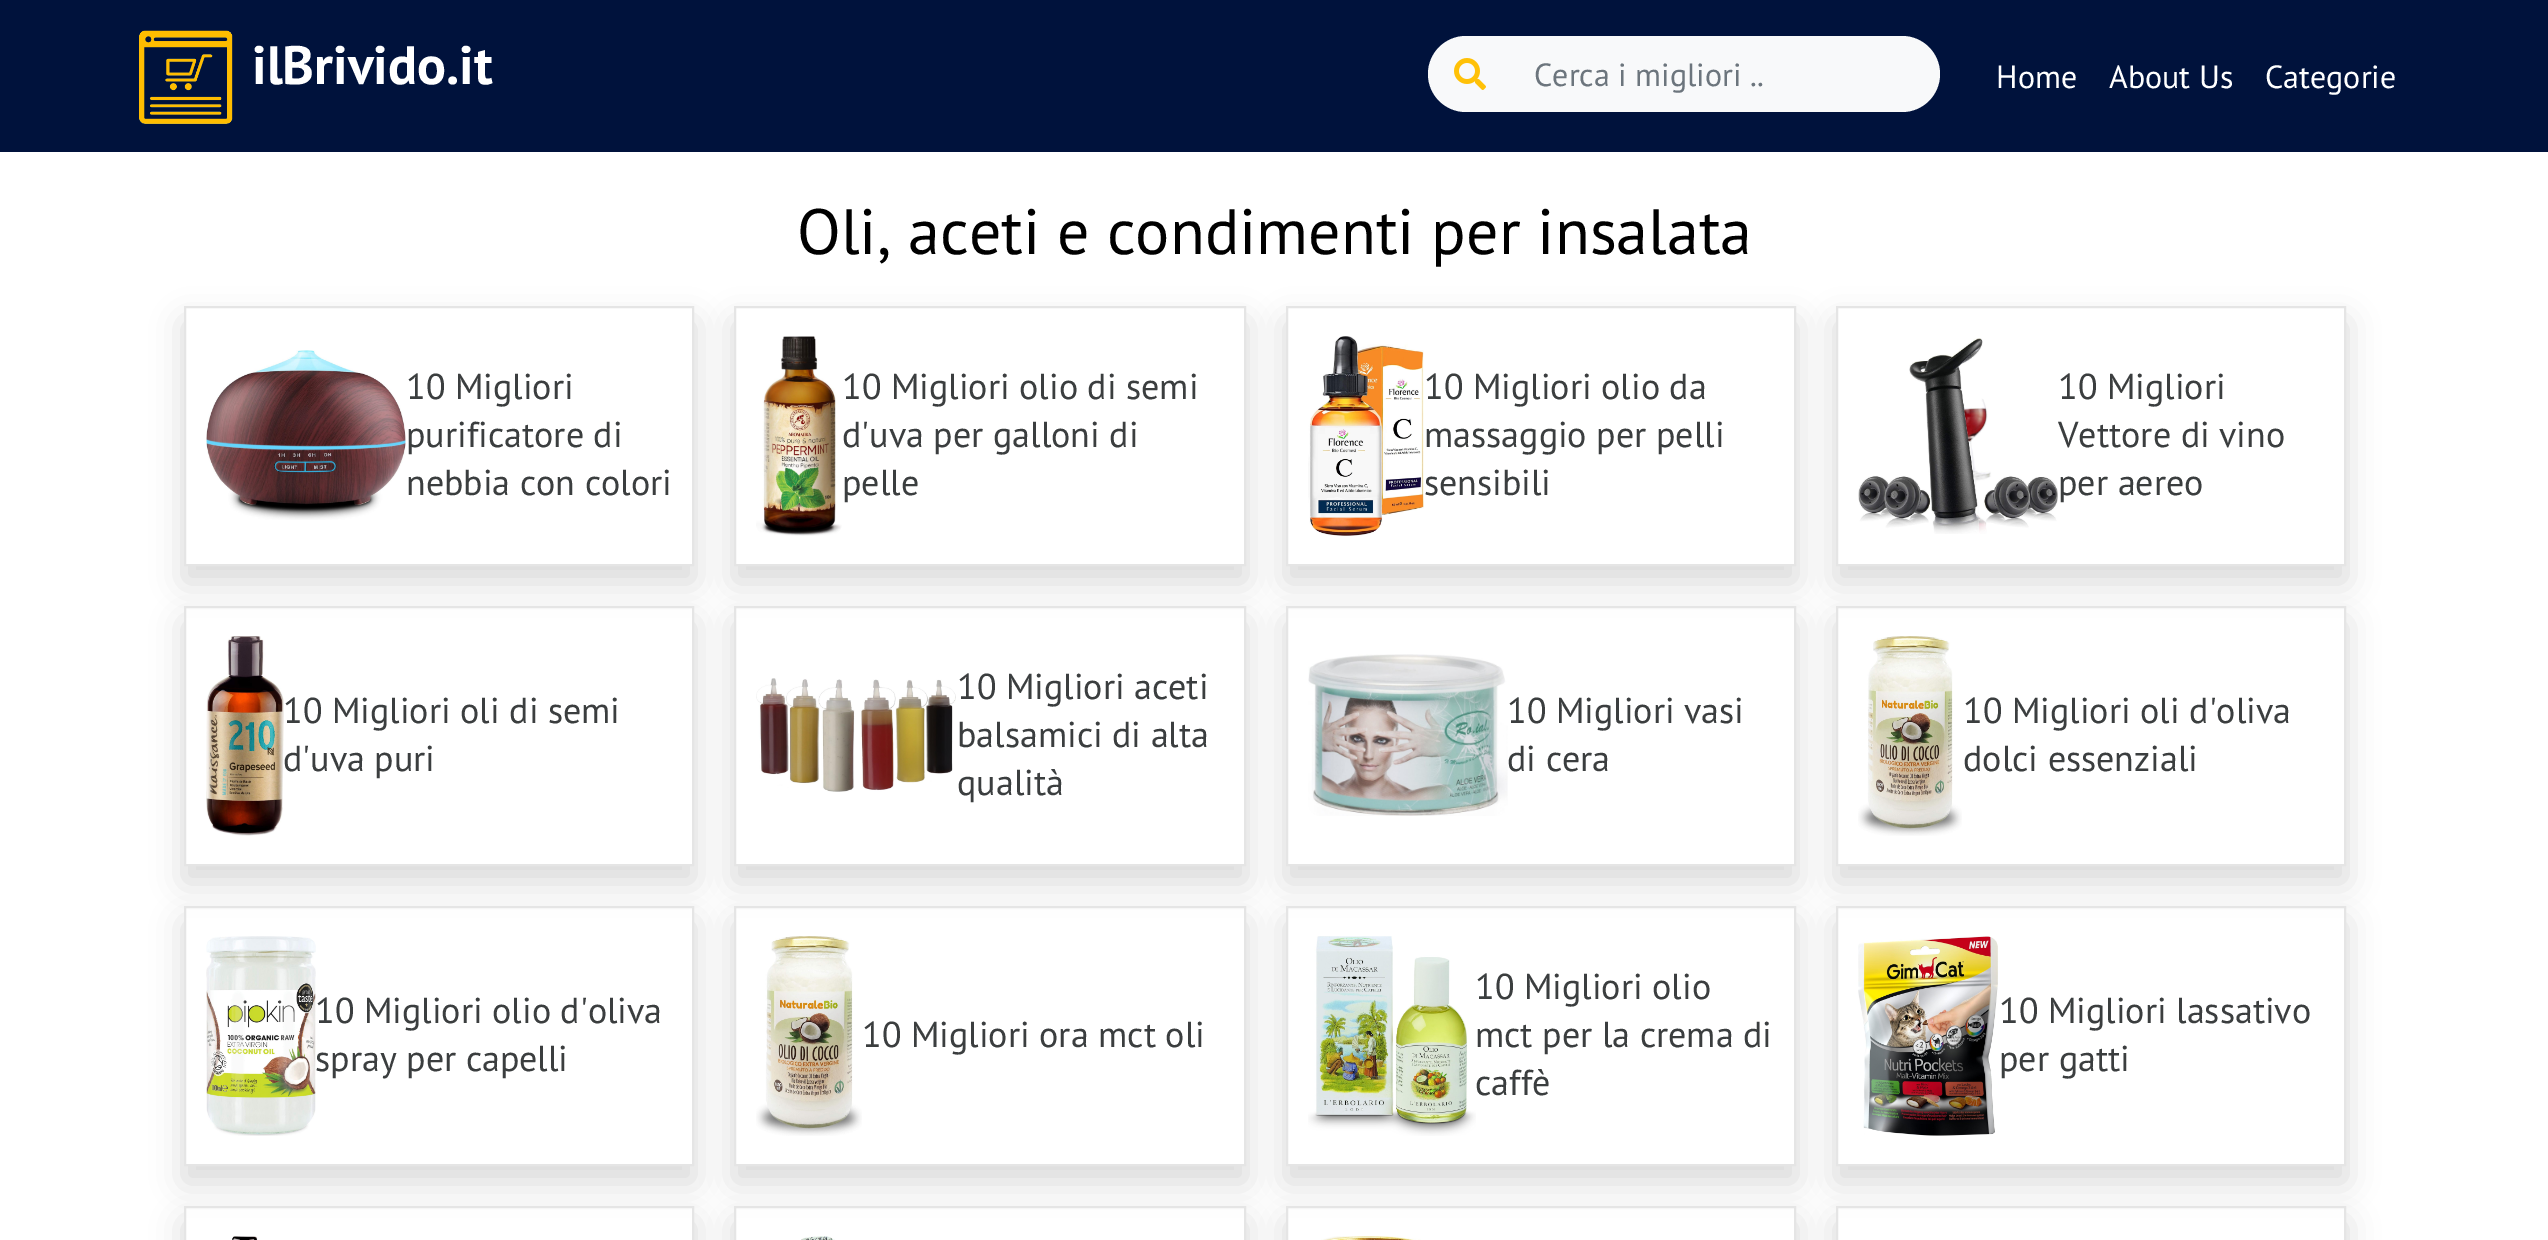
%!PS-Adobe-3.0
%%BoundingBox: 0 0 2548 1240
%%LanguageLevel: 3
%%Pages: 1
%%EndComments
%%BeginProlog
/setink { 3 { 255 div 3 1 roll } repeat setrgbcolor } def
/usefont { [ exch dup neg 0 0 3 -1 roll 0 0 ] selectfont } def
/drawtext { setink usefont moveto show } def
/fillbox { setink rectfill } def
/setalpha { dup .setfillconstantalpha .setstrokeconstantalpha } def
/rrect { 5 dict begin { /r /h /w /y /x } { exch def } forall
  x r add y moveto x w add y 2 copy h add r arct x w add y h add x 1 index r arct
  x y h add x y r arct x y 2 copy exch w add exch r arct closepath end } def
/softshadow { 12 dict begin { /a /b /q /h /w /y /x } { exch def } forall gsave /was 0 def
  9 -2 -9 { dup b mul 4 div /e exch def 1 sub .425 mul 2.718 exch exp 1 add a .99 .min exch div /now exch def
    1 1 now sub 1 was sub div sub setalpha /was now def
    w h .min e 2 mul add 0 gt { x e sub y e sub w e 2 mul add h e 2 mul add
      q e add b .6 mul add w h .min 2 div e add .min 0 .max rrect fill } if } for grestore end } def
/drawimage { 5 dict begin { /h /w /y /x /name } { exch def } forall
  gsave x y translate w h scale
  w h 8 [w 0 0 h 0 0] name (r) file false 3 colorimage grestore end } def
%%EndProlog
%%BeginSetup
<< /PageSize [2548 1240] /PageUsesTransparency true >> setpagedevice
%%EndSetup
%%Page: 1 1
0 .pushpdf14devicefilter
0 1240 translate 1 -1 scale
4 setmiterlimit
0 0 2548 1240 255 255 255 fillbox
0 0 2548 152 0 18 60 fillbox
(assets/img1.rgb) 139 30 94 94 drawimage
(ilBrivido.it) 252 84 /PTSans-Bold 54 255 255 255 drawtext
248 249 250 setink
1428 36 512 76 38 rrect fill
(assets/img2.rgb) 1454 58 32 32 drawimage
(Cerca i migliori ..) 1534 86 /PTSans-Regular 32 108 117 125 drawtext
(Home) 1996 88 /PTSans-Regular 32 255 255 255 drawtext
(About Us) 2109 88 /PTSans-Regular 32 255 255 255 drawtext
(Categorie) 2265 88 /PTSans-Regular 32 255 255 255 drawtext
(Oli, aceti e condimenti per insalata) 797 254 /PTSans-Regular 64 0 0 0 drawtext
gsave
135 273 moveto 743 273 lineto 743 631 lineto 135 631 lineto closepath 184 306 moveto 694 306 lineto 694 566 lineto 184 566 lineto closepath eoclip newpath
184 322 510 260 0 16 0.15 softshadow
grestore
229 229 229 setink
2 setlinewidth
185 307 508 258 rectstroke
(assets/img3.rgb) 206 350 200 170 drawimage
(10 Migliori) 406 399 /PTSans-Regular 36 59 62 63 drawtext
(purificatore di) 406 447 /PTSans-Regular 36 59 62 63 drawtext
(nebbia con colori) 406 495 /PTSans-Regular 36 59 62 63 drawtext
gsave
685 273 moveto 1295 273 lineto 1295 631 lineto 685 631 lineto closepath 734 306 moveto 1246 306 lineto 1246 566 lineto 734 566 lineto closepath eoclip newpath
0 0 0 setink
734 322 512 260 0 16 0.15 softshadow
grestore
229 229 229 setink
735 307 510 258 rectstroke
(assets/img4.rgb) 756 336 86 200 drawimage
(10 Migliori olio di semi) 842 399 /PTSans-Regular 36 59 62 63 drawtext
(d'uva per galloni di) 842 447 /PTSans-Regular 36 59 62 63 drawtext
(pelle) 842 495 /PTSans-Regular 36 59 62 63 drawtext
gsave
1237 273 moveto 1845 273 lineto 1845 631 lineto 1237 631 lineto closepath 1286 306 moveto 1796 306 lineto 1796 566 lineto 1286 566 lineto closepath eoclip newpath
0 0 0 setink
1286 322 510 260 0 16 0.15 softshadow
grestore
229 229 229 setink
1287 307 508 258 rectstroke
(assets/img5.rgb) 1308 336 116 200 drawimage
(10 Migliori olio da) 1424 399 /PTSans-Regular 36 59 62 63 drawtext
(massaggio per pelli) 1424 447 /PTSans-Regular 36 59 62 63 drawtext
(sensibili) 1424 495 /PTSans-Regular 36 59 62 63 drawtext
gsave
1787 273 moveto 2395 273 lineto 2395 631 lineto 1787 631 lineto closepath 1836 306 moveto 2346 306 lineto 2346 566 lineto 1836 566 lineto closepath eoclip newpath
0 0 0 setink
1836 322 510 260 0 16 0.15 softshadow
grestore
229 229 229 setink
1837 307 508 258 rectstroke
(assets/img6.rgb) 1858 338 200 196 drawimage
(10 Migliori) 2058 399 /PTSans-Regular 36 59 62 63 drawtext
(Vettore di vino) 2058 447 /PTSans-Regular 36 59 62 63 drawtext
(per aereo) 2058 495 /PTSans-Regular 36 59 62 63 drawtext
gsave
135 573 moveto 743 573 lineto 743 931 lineto 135 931 lineto closepath 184 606 moveto 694 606 lineto 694 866 lineto 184 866 lineto closepath eoclip newpath
0 0 0 setink
184 622 510 260 0 16 0.15 softshadow
grestore
229 229 229 setink
185 607 508 258 rectstroke
(assets/img7.rgb) 206 636 78 200 drawimage
(10 Migliori oli di semi) 283 723 /PTSans-Regular 36 59 62 63 drawtext
(d'uva puri) 283 771 /PTSans-Regular 36 59 62 63 drawtext
gsave
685 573 moveto 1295 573 lineto 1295 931 lineto 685 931 lineto closepath 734 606 moveto 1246 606 lineto 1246 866 lineto 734 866 lineto closepath eoclip newpath
0 0 0 setink
734 622 512 260 0 16 0.15 softshadow
grestore
229 229 229 setink
735 607 510 258 rectstroke
(assets/img8.rgb) 756 678 200 114 drawimage
(10 Migliori aceti) 957 699 /PTSans-Regular 36 59 62 63 drawtext
(balsamici di alta) 957 747 /PTSans-Regular 36 59 62 63 drawtext
(qualità) 957 795 /PTSans-Regular 36 59 62 63 drawtext
gsave
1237 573 moveto 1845 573 lineto 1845 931 lineto 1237 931 lineto closepath 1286 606 moveto 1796 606 lineto 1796 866 lineto 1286 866 lineto closepath eoclip newpath
0 0 0 setink
1286 622 510 260 0 16 0.15 softshadow
grestore
229 229 229 setink
1287 607 508 258 rectstroke
(assets/img9.rgb) 1308 654 200 162 drawimage
(10 Migliori vasi) 1507 723 /PTSans-Regular 36 59 62 63 drawtext
(di cera) 1507 771 /PTSans-Regular 36 59 62 63 drawtext
gsave
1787 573 moveto 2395 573 lineto 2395 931 lineto 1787 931 lineto closepath 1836 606 moveto 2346 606 lineto 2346 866 lineto 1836 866 lineto closepath eoclip newpath
0 0 0 setink
1836 622 510 260 0 16 0.15 softshadow
grestore
229 229 229 setink
1837 607 508 258 rectstroke
(assets/img10.rgb) 1858 636 104 200 drawimage
(10 Migliori oli d'oliva) 1963 723 /PTSans-Regular 36 59 62 63 drawtext
(dolci essenziali) 1963 771 /PTSans-Regular 36 59 62 63 drawtext
gsave
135 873 moveto 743 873 lineto 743 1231 lineto 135 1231 lineto closepath 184 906 moveto 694 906 lineto 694 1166 lineto 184 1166 lineto closepath eoclip newpath
0 0 0 setink
184 922 510 260 0 16 0.15 softshadow
grestore
229 229 229 setink
185 907 508 258 rectstroke
(assets/img11.rgb) 206 936 110 200 drawimage
(10 Migliori olio d'oliva) 315 1023 /PTSans-Regular 36 59 62 63 drawtext
(spray per capelli) 315 1071 /PTSans-Regular 36 59 62 63 drawtext
gsave
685 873 moveto 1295 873 lineto 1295 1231 lineto 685 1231 lineto closepath 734 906 moveto 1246 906 lineto 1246 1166 lineto 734 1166 lineto closepath eoclip newpath
0 0 0 setink
734 922 512 260 0 16 0.15 softshadow
grestore
229 229 229 setink
735 907 510 258 rectstroke
(assets/img12.rgb) 756 936 106 200 drawimage
(10 Migliori ora mct oli) 862 1047 /PTSans-Regular 36 59 62 63 drawtext
gsave
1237 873 moveto 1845 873 lineto 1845 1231 lineto 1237 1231 lineto closepath 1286 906 moveto 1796 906 lineto 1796 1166 lineto 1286 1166 lineto closepath eoclip newpath
0 0 0 setink
1286 922 510 260 0 16 0.15 softshadow
grestore
229 229 229 setink
1287 907 508 258 rectstroke
(assets/img13.rgb) 1308 936 168 200 drawimage
(10 Migliori olio) 1475 999 /PTSans-Regular 36 59 62 63 drawtext
(mct per la crema di) 1475 1047 /PTSans-Regular 36 59 62 63 drawtext
(caffè) 1475 1095 /PTSans-Regular 36 59 62 63 drawtext
gsave
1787 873 moveto 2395 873 lineto 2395 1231 lineto 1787 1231 lineto closepath 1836 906 moveto 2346 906 lineto 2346 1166 lineto 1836 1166 lineto closepath eoclip newpath
0 0 0 setink
1836 922 510 260 0 16 0.15 softshadow
grestore
229 229 229 setink
1837 907 508 258 rectstroke
(assets/img14.rgb) 1858 936 140 200 drawimage
(10 Migliori lassativo) 1999 1023 /PTSans-Regular 36 59 62 63 drawtext
(per gatti) 1999 1071 /PTSans-Regular 36 59 62 63 drawtext
gsave
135 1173 moveto 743 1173 lineto 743 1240 lineto 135 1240 lineto closepath 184 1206 moveto 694 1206 lineto 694 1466 lineto 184 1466 lineto closepath eoclip newpath
0 0 0 setink
184 1222 510 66 0 16 0.15 softshadow
grestore
229 229 229 setink
185 1207 508 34 rectstroke
(assets/img15.rgb) 232 1236 26 4 drawimage
gsave
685 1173 moveto 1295 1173 lineto 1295 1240 lineto 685 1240 lineto closepath 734 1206 moveto 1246 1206 lineto 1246 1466 lineto 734 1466 lineto closepath eoclip newpath
0 0 0 setink
734 1222 512 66 0 16 0.15 softshadow
grestore
735 1207 510 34 rectstroke
(assets/img16.rgb) 801 1236 34 4 drawimage
gsave
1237 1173 moveto 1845 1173 lineto 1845 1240 lineto 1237 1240 lineto closepath 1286 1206 moveto 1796 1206 lineto 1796 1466 lineto 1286 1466 lineto closepath eoclip newpath
0 0 0 setink
1286 1222 510 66 0 16 0.15 softshadow
grestore
1287 1207 508 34 rectstroke
(assets/img17.rgb) 1321 1236 100 4 drawimage
gsave
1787 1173 moveto 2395 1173 lineto 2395 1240 lineto 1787 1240 lineto closepath 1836 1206 moveto 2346 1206 lineto 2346 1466 lineto 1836 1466 lineto closepath eoclip newpath
0 0 0 setink
1836 1222 510 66 0 16 0.15 softshadow
grestore
1837 1207 508 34 rectstroke
.poppdf14devicefilter showpage
%%EOF
